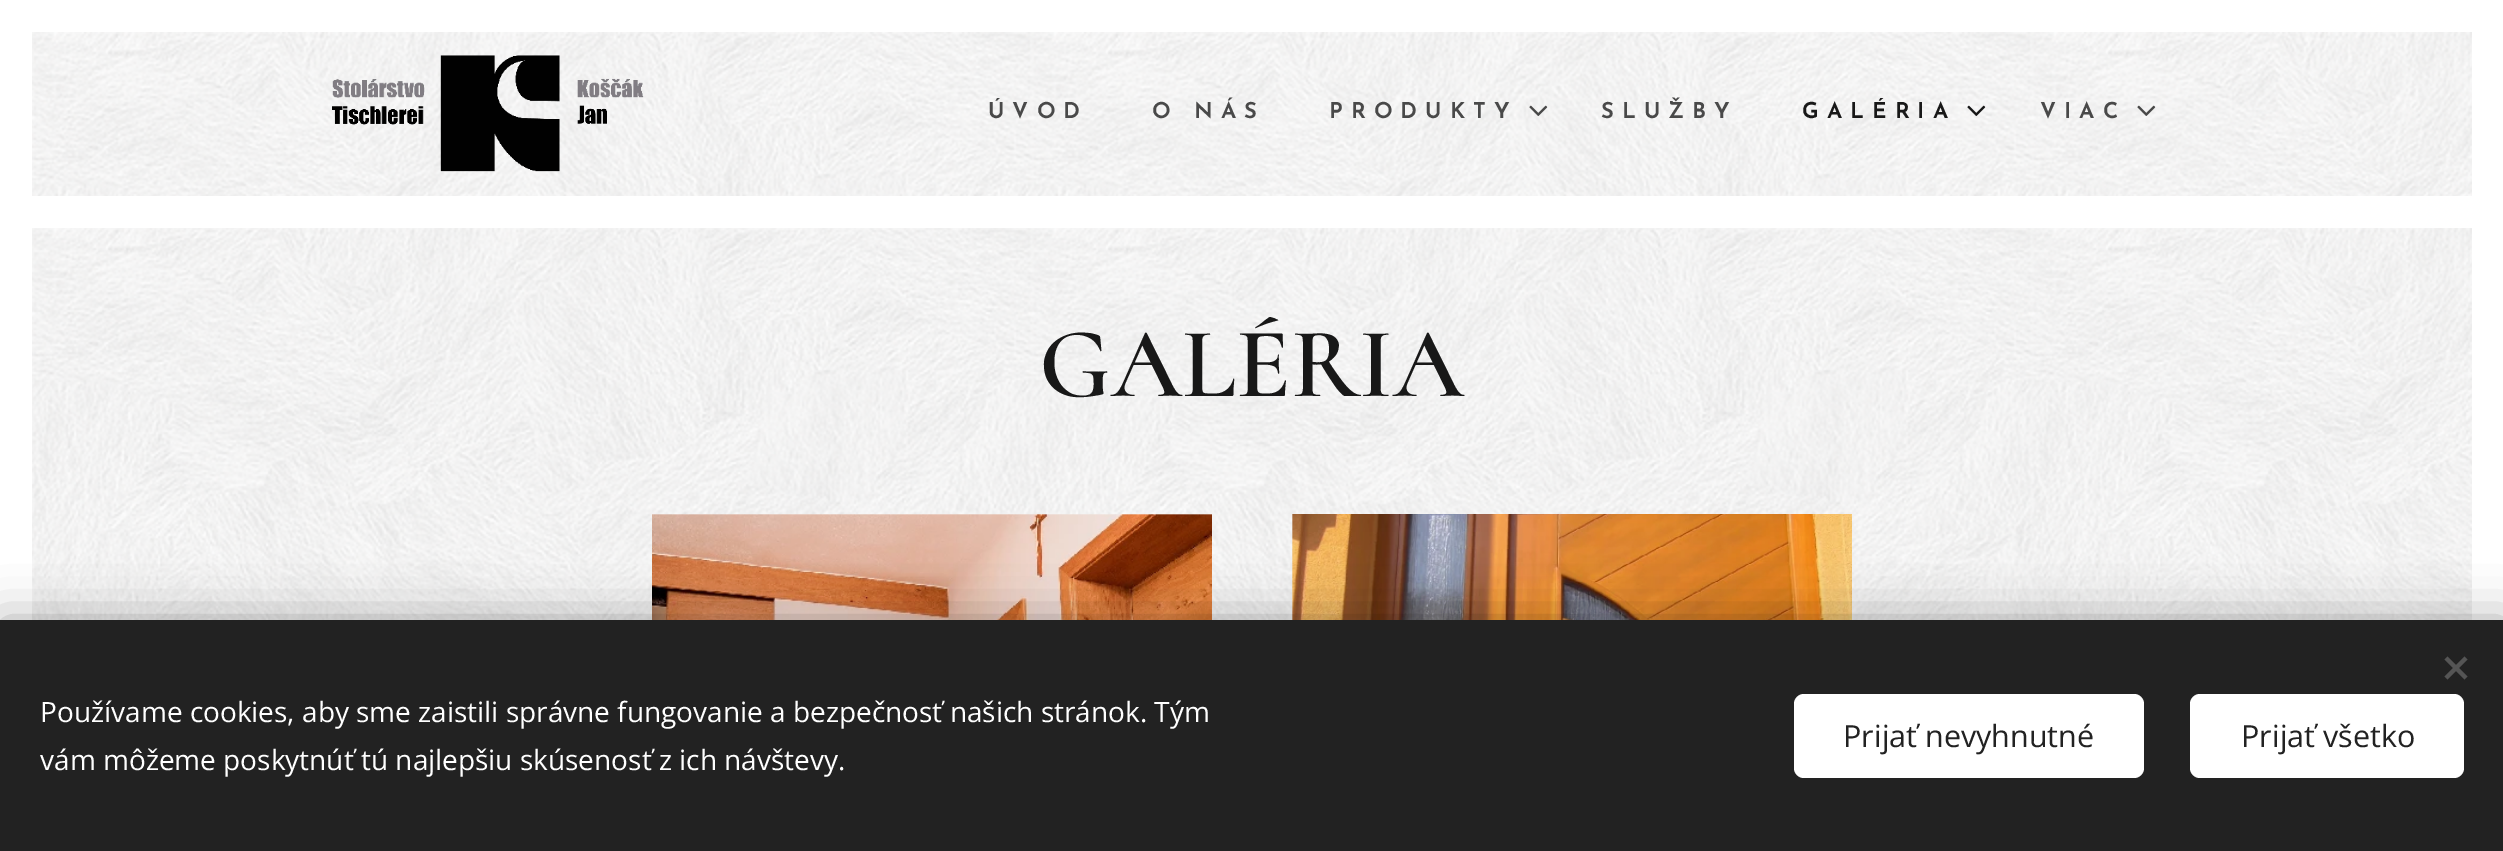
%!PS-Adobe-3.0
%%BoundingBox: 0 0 2503 851
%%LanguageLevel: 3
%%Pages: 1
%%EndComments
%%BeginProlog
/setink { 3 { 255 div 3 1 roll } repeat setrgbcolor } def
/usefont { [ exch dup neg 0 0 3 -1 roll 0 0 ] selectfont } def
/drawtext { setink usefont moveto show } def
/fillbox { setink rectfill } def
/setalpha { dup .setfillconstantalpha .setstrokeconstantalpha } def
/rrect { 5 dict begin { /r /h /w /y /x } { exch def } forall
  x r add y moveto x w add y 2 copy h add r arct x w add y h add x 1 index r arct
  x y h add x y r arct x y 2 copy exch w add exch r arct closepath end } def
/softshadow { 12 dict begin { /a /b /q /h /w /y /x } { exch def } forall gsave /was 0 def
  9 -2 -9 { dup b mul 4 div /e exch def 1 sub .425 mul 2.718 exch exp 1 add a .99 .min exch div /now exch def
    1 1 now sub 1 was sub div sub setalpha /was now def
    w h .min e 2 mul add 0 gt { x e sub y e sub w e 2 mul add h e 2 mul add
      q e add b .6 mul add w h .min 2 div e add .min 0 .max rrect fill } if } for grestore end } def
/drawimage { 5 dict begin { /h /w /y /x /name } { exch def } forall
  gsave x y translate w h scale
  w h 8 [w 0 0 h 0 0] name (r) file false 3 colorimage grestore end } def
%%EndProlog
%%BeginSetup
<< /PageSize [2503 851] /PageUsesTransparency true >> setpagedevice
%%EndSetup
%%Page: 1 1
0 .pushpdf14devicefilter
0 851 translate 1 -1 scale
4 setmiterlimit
0 0 2503 851 255 255 255 fillbox
(assets/img1.rgb) 32 32 2440 164 drawimage
(assets/img2.rgb) 332 55 312 117 drawimage
/JosefinSans-SemiBold 22 usefont
73 73 73 setink
988 118 moveto 8 0 (ÚVOD) ashow
1152 118 moveto 8 0 (O NÁS) ashow
1329 118 moveto 8 0 (PRODUKTY) ashow
(assets/img3.rgb) 1529 105 19 11 drawimage
1601 118 moveto 8 0 (SLUŽBY) ashow
24 24 24 setink
1802 118 moveto 8 0 (GALÉRIA) ashow
(assets/img4.rgb) 1967 105 19 11 drawimage
73 73 73 setink
2040 118 moveto 8 0 (VIAC) ashow
(assets/img5.rgb) 2137 105 19 11 drawimage
(assets/img6.rgb) 32 228 2440 392 drawimage
(GALÉRIA) 1039 396 /Cormorant-SemiBold 100 24 24 24 drawtext
(assets/img7.rgb) 652 514 560 106 drawimage
(assets/img8.rgb) 1292 514 560 106 drawimage
0 0 0 setink
0 620 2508 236 0 25 0.33 softshadow
0 620 2503 231 34 34 34 fillbox
85 85 85 setink
2444.5 676.5 moveto 2464.5 656.5 lineto 2467.5 659.5 lineto 2447.5 679.5 lineto closepath fill
2447.5 656.5 moveto 2467.5 676.5 lineto 2464.5 679.5 lineto 2444.5 659.5 lineto closepath fill
(Používame cookies, aby sme zaistili správne fungovanie a bezpečnosť našich stránok. Tým) 40 722 /OpenSans-Regular 28 255 255 255 drawtext
(vám môžeme poskytnúť tú najlepšiu skúsenosť z ich návštevy.) 40 770 /OpenSans-Regular 28 255 255 255 drawtext
1794 694 350 84 10 rrect fill
(Prijať nevyhnutné) 1843 747 /OpenSans-Regular 30.5 34 34 34 drawtext
255 255 255 setink
2190 694 274 84 10 rrect fill
(Prijať všetko) 2241 747 /OpenSans-Regular 30.5 34 34 34 drawtext
.poppdf14devicefilter showpage
%%EOF
